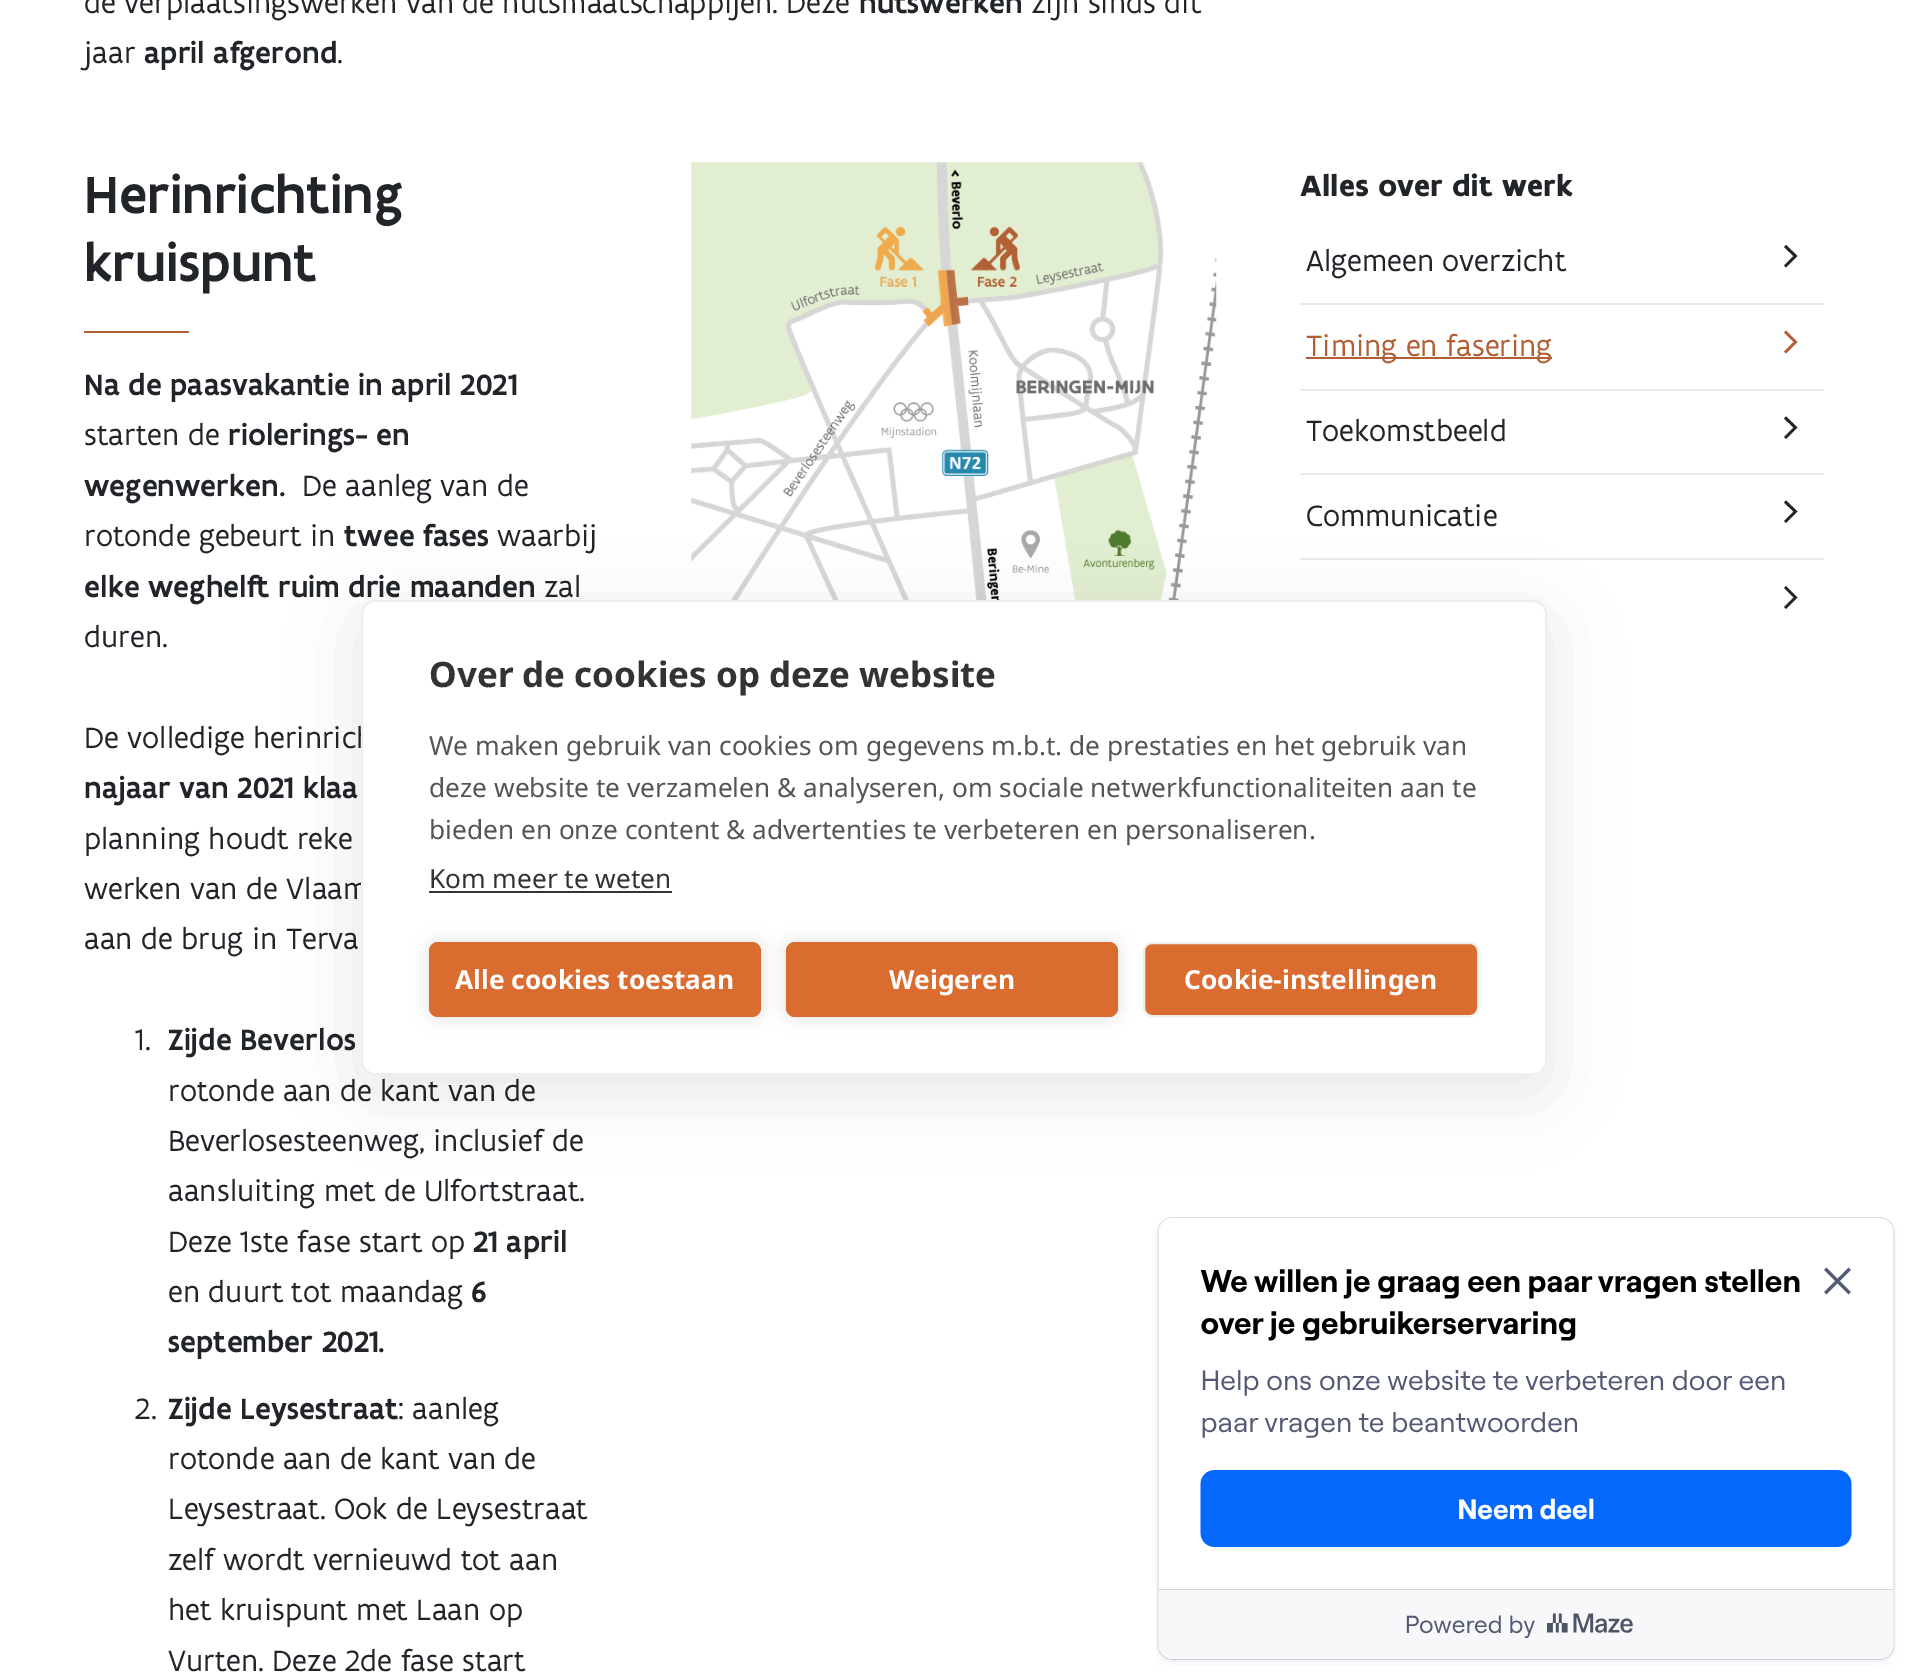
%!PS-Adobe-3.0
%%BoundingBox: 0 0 1907 1672
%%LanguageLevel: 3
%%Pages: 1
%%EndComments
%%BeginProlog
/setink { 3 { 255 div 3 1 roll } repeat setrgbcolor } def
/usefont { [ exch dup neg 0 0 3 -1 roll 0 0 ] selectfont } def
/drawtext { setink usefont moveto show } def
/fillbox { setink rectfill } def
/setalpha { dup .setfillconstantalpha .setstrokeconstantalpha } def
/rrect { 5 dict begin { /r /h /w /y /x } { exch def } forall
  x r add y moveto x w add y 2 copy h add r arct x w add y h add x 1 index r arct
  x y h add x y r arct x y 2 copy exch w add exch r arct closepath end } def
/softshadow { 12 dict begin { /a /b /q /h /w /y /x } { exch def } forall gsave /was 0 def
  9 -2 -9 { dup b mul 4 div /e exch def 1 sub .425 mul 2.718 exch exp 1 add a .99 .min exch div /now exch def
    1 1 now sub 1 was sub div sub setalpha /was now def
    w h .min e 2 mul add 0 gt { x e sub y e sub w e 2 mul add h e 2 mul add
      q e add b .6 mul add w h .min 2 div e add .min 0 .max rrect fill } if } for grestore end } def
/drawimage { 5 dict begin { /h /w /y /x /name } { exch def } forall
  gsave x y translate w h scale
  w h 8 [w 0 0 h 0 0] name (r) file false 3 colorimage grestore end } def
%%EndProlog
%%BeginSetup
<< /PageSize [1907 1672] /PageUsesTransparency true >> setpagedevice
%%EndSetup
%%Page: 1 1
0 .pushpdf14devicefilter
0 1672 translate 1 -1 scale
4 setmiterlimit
0 0 1907 1672 255 255 255 fillbox
(de verplaatsingswerken van de nutsmaatschappijen. Deze) 84 13 /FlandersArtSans-Regular 31.5 33 37 41 drawtext
(nutswerken) 859 13 /FlandersArtSans-Medium 31.5 33 37 41 drawtext
(zijn sinds dit) 1031 13 /FlandersArtSans-Regular 31.5 33 37 41 drawtext
(jaar) 84 63 /FlandersArtSans-Regular 31.5 33 37 41 drawtext
(april afgerond) 144 63 /FlandersArtSans-Medium 31.5 33 37 41 drawtext
(.) 337 63 /FlandersArtSans-Regular 31.5 33 37 41 drawtext
(Herinrichting) 84 213 /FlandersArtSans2-Medium 56 33 37 41 drawtext
(kruispunt) 84 281 /FlandersArtSans2-Medium 56 33 37 41 drawtext
84 331 105 2 179 95 53 fillbox
(Na de paasvakantie in april 2021) 84 395 /FlandersArtSans-Medium 31.5 33 37 41 drawtext
(starten de) 84 445 /FlandersArtSans-Regular 31.5 33 37 41 drawtext
(riolerings- en) 228 445 /FlandersArtSans-Medium 31.5 33 37 41 drawtext
(wegenwerken.) 84 496 /FlandersArtSans-Medium 31.5 33 37 41 drawtext
(De aanleg van de) 302 496 /FlandersArtSans-Regular 31.5 33 37 41 drawtext
(rotonde gebeurt in) 84 546 /FlandersArtSans-Regular 31.5 33 37 41 drawtext
(twee fases) 344 546 /FlandersArtSans-Medium 31.5 33 37 41 drawtext
(waarbij) 497 546 /FlandersArtSans-Regular 31.5 33 37 41 drawtext
(elke weghelft ruim drie maanden) 84 597 /FlandersArtSans-Medium 31.5 33 37 41 drawtext
(zal) 544 597 /FlandersArtSans-Regular 31.5 33 37 41 drawtext
(duren.) 84 647 /FlandersArtSans-Regular 31.5 33 37 41 drawtext
(De volledige herinrich) 84 748 /FlandersArtSans-Regular 31.5 33 37 41 drawtext
(najaar van 2021 klaa) 84 798 /FlandersArtSans-Medium 31.5 33 37 41 drawtext
(planning houdt reke) 84 849 /FlandersArtSans-Regular 31.5 33 37 41 drawtext
(werken van de Vlaam) 84 899 /FlandersArtSans-Regular 31.5 33 37 41 drawtext
(aan de brug in Terva) 84 949 /FlandersArtSans-Regular 31.5 33 37 41 drawtext
(1.) 135 1050 /FlandersArtSans-Regular 31.5 33 37 41 drawtext
(Zijde Beverlos) 168 1050 /FlandersArtSans-Medium 31.5 33 37 41 drawtext
(rotonde aan de kant van de) 168 1101 /FlandersArtSans-Regular 31.5 33 37 41 drawtext
(Beverlosesteenweg, inclusief de) 168 1151 /FlandersArtSans-Regular 31.5 33 37 41 drawtext
(aansluiting met de Ulfortstraat.) 168 1201 /FlandersArtSans-Regular 31.5 33 37 41 drawtext
(Deze 1ste fase start op) 168 1252 /FlandersArtSans-Regular 31.5 33 37 41 drawtext
(21 april) 473 1252 /FlandersArtSans-Medium 31.5 33 37 41 drawtext
(en duurt tot maandag) 168 1302 /FlandersArtSans-Regular 31.5 33 37 41 drawtext
(6) 471 1302 /FlandersArtSans-Medium 31.5 33 37 41 drawtext
(september 2021.) 168 1352 /FlandersArtSans-Medium 31.5 33 37 41 drawtext
(2.) 135 1419 /FlandersArtSans-Regular 31.5 33 37 41 drawtext
(Zijde Leysestraat) 168 1419 /FlandersArtSans-Medium 31.5 33 37 41 drawtext
(: aanleg) 398 1419 /FlandersArtSans-Regular 31.5 33 37 41 drawtext
(rotonde aan de kant van de) 168 1469 /FlandersArtSans-Regular 31.5 33 37 41 drawtext
(Leysestraat. Ook de Leysestraat) 168 1519 /FlandersArtSans-Regular 31.5 33 37 41 drawtext
(zelf wordt vernieuwd tot aan) 168 1570 /FlandersArtSans-Regular 31.5 33 37 41 drawtext
(het kruispunt met Laan op) 168 1620 /FlandersArtSans-Regular 31.5 33 37 41 drawtext
(Vurten. Deze 2de fase start) 168 1671 /FlandersArtSans-Regular 31.5 33 37 41 drawtext
(assets/img1.rgb) 691 162 526 438 drawimage
(Alles over dit werk) 1300 196 /FlandersArtSans-Bold 31.5 33 37 41 drawtext
1300 303 524 2 234 234 234 fillbox
(Algemeen overzicht) 1306 271 /FlandersArtSans-Regular 31.5 33 37 41 drawtext
1786 267.5 moveto 1784 265.5 lineto 1793.5 256 lineto 1784 247 lineto 1786 245 lineto 1797.5 256 lineto closepath fill
1300 389 524 2 234 234 234 fillbox
1306 357 246 2 179 95 53 fillbox
(Timing en fasering) 1306 356 /FlandersArtSans-Regular 31.5 179 95 53 drawtext
1786 353.5 moveto 1784 351.5 lineto 1793.5 342 lineto 1784 332.5 lineto 1786 330.5 lineto 1797.5 342 lineto closepath fill
1300 473 524 2 234 234 234 fillbox
(Toekomstbeeld) 1306 441 /FlandersArtSans-Regular 31.5 33 37 41 drawtext
1786 439 moveto 1784 437 lineto 1793.5 427.5 lineto 1784 418.5 lineto 1786 416.5 lineto 1797.5 427.5 lineto closepath fill
1300 558 524 2 234 234 234 fillbox
(Communicatie) 1306 526 /FlandersArtSans-Regular 31.5 33 37 41 drawtext
1786 523 moveto 1784 521 lineto 1793.5 511.5 lineto 1784 502.5 lineto 1786 500.5 lineto 1797.5 511.5 lineto closepath fill
1786 609 moveto 1784 607 lineto 1793.5 597.5 lineto 1784 588 lineto 1786 586 lineto 1797.5 597.5 lineto closepath fill
0 0 0 setink
361 618 1186 474 14 35 0.1 softshadow
255 255 255 setink
362 601 1184 473 13 rrect gsave fill grestore
238 238 238 setink
2 setlinewidth
stroke
(Over de cookies op deze website) 429 687 /NotoSans-Bold 35 51 51 51 drawtext
(We maken gebruik van cookies om gegevens m.b.t. de prestaties en het gebruik van) 429 755 /NotoSans-Regular 26.25 85 85 85 drawtext
(deze website te verzamelen & analyseren, om sociale netwerkfunctionaliteiten aan te) 429 797 /NotoSans-Regular 26.25 85 85 85 drawtext
(bieden en onze content & advertenties te verbeteren en personaliseren.) 429 839 /NotoSans-Regular 26.25 85 85 85 drawtext
(Kom meer te weten) 429 888 /NotoSans-Regular 26.25 51 51 51 drawtext
429 891 243 2 51 51 51 fillbox
0 0 0 setink
429 942 332 75 9 9 0.12 softshadow
219 108 48 setink
429 942 332 75 9 rrect fill
(Alle cookies toestaan) 455 989 /NotoSans-Bold 26.25 255 255 255 drawtext
0 0 0 setink
786 942 332 75 9 9 0.12 softshadow
219 108 48 setink
786 942 332 75 9 rrect fill
(Weigeren) 889 989 /NotoSans-Bold 26.25 255 255 255 drawtext
219 108 48 setink
1144 943 334 73 8 rrect gsave fill grestore
238 238 238 setink
stroke
(Cookie-instellingen) 1184 989 /NotoSans-Bold 26.25 255 255 255 drawtext
(assets/img2.rgb) 1155 1217 742 449 drawimage
.poppdf14devicefilter showpage
%%EOF
